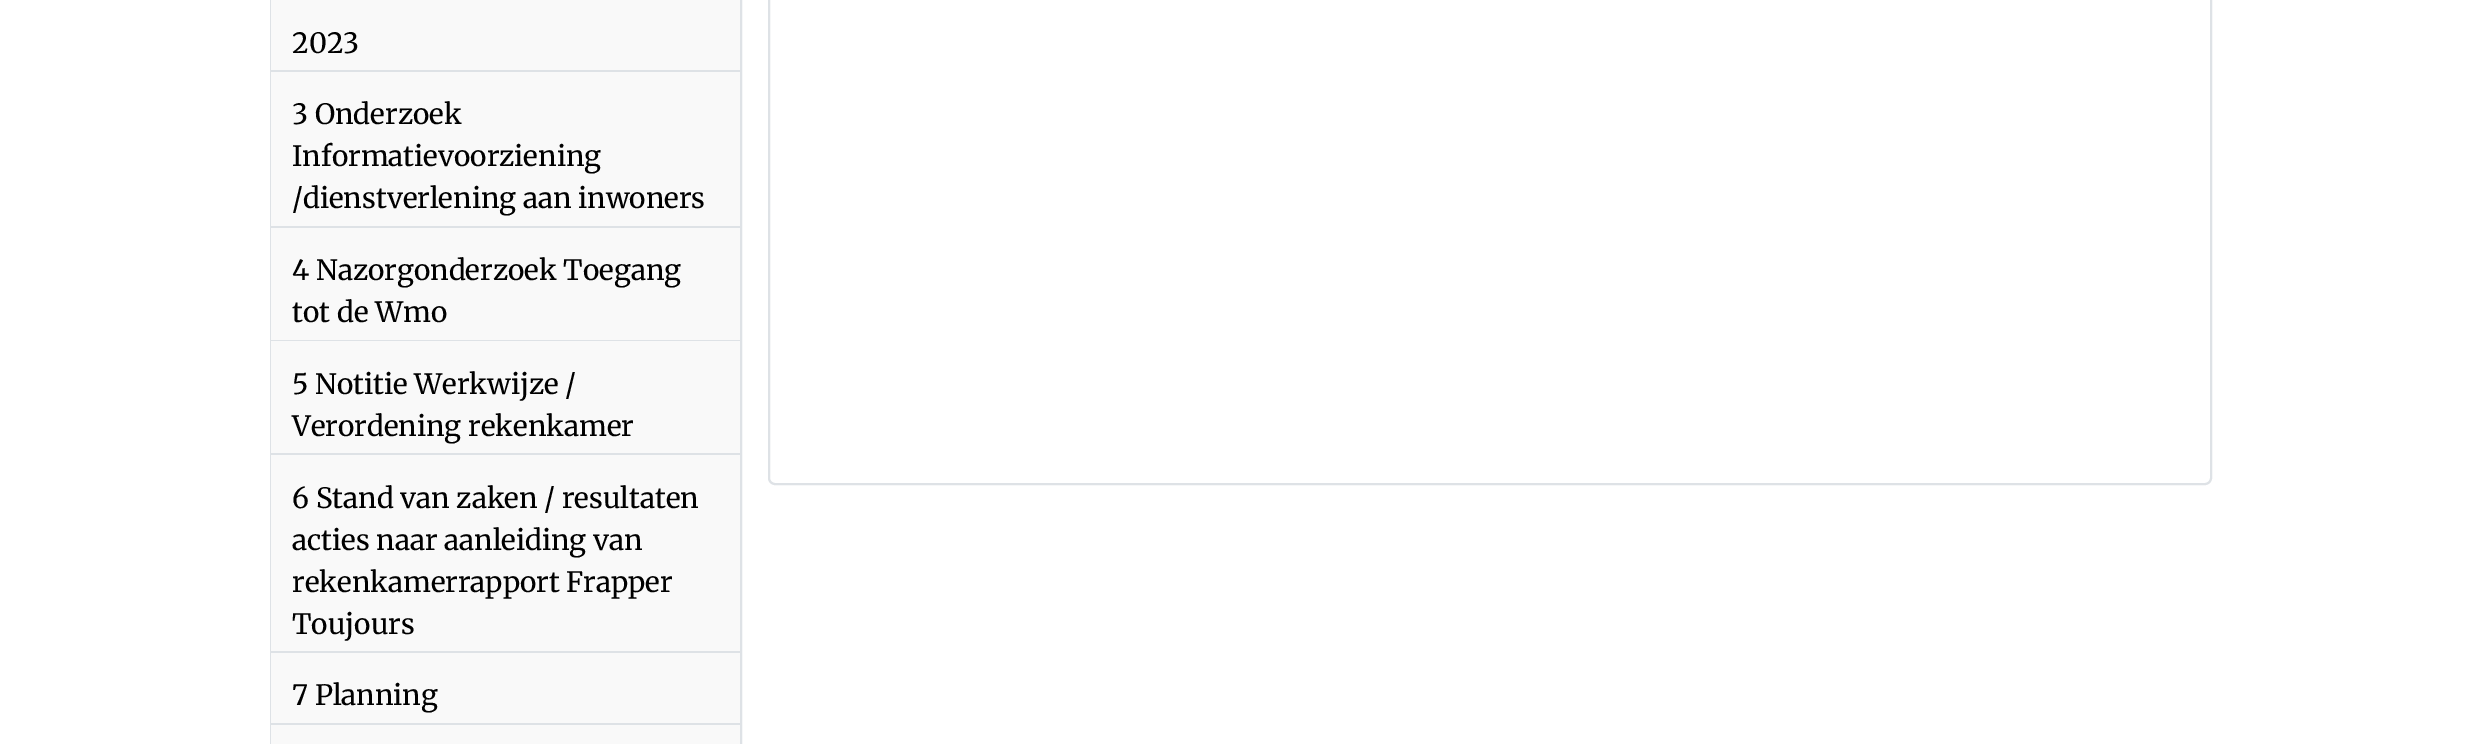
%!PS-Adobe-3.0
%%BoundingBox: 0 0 2481 744
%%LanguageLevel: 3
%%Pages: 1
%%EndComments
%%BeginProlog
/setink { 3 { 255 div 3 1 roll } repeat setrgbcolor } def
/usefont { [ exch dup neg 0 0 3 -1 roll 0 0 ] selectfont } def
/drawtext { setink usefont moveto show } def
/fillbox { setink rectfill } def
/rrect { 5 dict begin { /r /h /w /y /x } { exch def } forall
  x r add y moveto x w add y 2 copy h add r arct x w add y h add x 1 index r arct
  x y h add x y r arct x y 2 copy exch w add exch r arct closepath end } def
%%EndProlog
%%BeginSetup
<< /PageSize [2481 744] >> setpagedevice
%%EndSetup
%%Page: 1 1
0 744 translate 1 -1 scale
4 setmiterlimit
0 0 2481 744 255 255 255 fillbox
222 226 230 setink
2 setlinewidth
271 -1 470 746 rectstroke
271 0 469 70 249 249 249 fillbox
271 70 469 2 222 226 230 fillbox
(2023) 292 53 /Merriweather-Regular 28 0 0 0 drawtext
271 72 469 154 249 249 249 fillbox
271 226 469 2 222 226 230 fillbox
(3 Onderzoek) 292 124 /Merriweather-Regular 28 0 0 0 drawtext
(Informatievoorziening) 292 166 /Merriweather-Regular 28 0 0 0 drawtext
(/dienstverlening aan inwoners) 292 208 /Merriweather-Regular 28 0 0 0 drawtext
271 228 469 112 249 249 249 fillbox
271 340 469 1 222 226 230 fillbox
(4 Nazorgonderzoek Toegang) 292 280 /Merriweather-Regular 28 0 0 0 drawtext
(tot de Wmo) 292 322 /Merriweather-Regular 28 0 0 0 drawtext
271 341 469 112 249 249 249 fillbox
271 453 469 2 222 226 230 fillbox
(5 Notitie Werkwijze /) 292 394 /Merriweather-Regular 28 0 0 0 drawtext
(Verordening rekenkamer) 292 436 /Merriweather-Regular 28 0 0 0 drawtext
271 455 469 196 249 249 249 fillbox
271 651 469 2 222 226 230 fillbox
(6 Stand van zaken / resultaten) 292 508 /Merriweather-Regular 28 0 0 0 drawtext
(acties naar aanleiding van) 292 550 /Merriweather-Regular 28 0 0 0 drawtext
(rekenkamerrapport Frapper) 292 592 /Merriweather-Regular 28 0 0 0 drawtext
(Toujours) 292 634 /Merriweather-Regular 28 0 0 0 drawtext
271 653 469 70 249 249 249 fillbox
271 723 469 2 222 226 230 fillbox
(7 Planning) 292 705 /Merriweather-Regular 28 0 0 0 drawtext
271 725 469 19 249 249 249 fillbox
222 226 230 setink
769 -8 1442 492 6 rrect stroke
showpage
%%EOF
